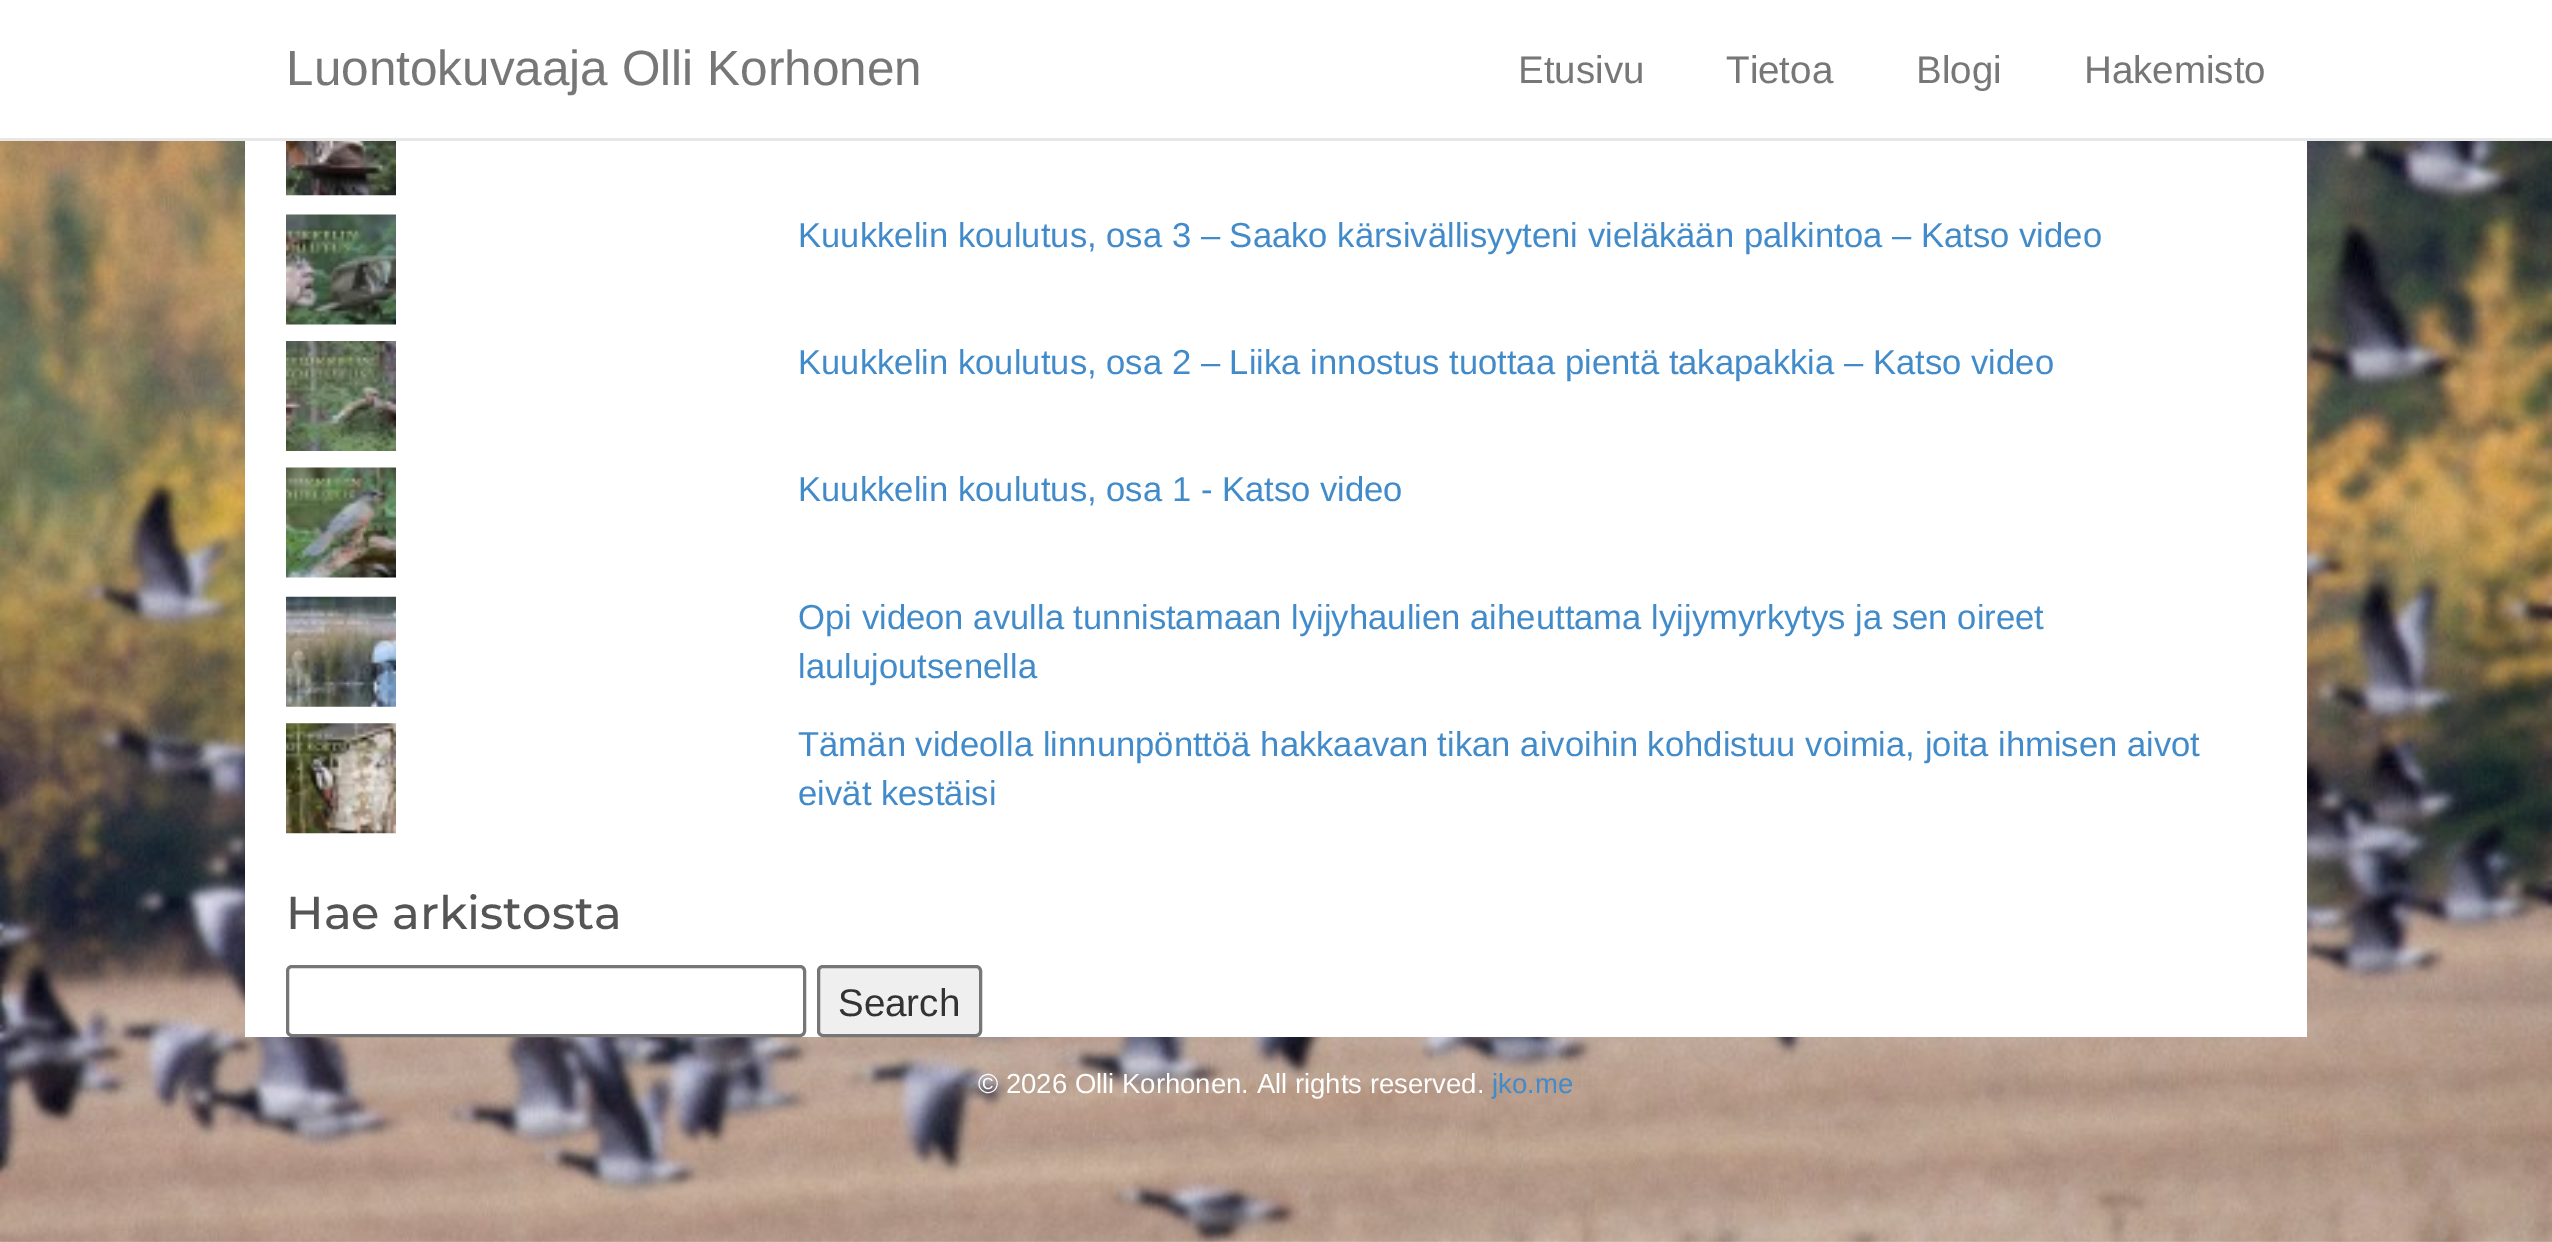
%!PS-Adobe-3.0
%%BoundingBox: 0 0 2552 1242
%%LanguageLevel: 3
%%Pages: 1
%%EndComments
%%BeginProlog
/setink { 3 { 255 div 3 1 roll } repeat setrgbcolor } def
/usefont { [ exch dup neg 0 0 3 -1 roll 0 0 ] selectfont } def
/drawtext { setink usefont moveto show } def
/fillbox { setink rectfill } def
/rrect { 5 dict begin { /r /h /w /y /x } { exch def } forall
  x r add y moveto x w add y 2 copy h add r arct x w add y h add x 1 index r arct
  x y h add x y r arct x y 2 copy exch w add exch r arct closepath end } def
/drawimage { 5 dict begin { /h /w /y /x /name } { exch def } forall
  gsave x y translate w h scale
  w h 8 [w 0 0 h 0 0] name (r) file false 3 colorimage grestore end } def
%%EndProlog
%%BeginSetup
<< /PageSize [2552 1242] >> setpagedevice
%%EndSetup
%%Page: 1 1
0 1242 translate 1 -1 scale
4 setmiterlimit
0 0 2552 1242 255 255 255 fillbox
(assets/img1.rgb) 0 141 2552 1101 drawimage
0 138 2552 3 231 231 231 fillbox
(Luontokuvaaja Olli Korhonen) 286 85 /LiberationSans-Regular 49.5 119 119 119 drawtext
(Etusivu) 1518 83 /LiberationSans-Regular 38.5 119 119 119 drawtext
(Tietoa) 1726 83 /LiberationSans-Regular 38.5 119 119 119 drawtext
(Blogi) 1916 83 /LiberationSans-Regular 38.5 119 119 119 drawtext
(Hakemisto) 2084 83 /LiberationSans-Regular 38.5 119 119 119 drawtext
245 141 2062 896 255 255 255 fillbox
(assets/img2.rgb) 286 141 110 55 drawimage
(assets/img3.rgb) 286 214 110 111 drawimage
(Kuukkelin koulutus, osa 3 – Saako kärsivällisyyteni vieläkään palkintoa – Katso video) 798 247 /LiberationSans-Regular 34.65 66 139 202 drawtext
(assets/img4.rgb) 286 341 110 110 drawimage
(Kuukkelin koulutus, osa 2 – Liika innostus tuottaa pientä takapakkia – Katso video) 798 374 /LiberationSans-Regular 34.65 66 139 202 drawtext
(assets/img5.rgb) 286 467 110 111 drawimage
(Kuukkelin koulutus, osa 1 - Katso video) 798 501 /LiberationSans-Regular 34.65 66 139 202 drawtext
(assets/img6.rgb) 286 596 110 111 drawimage
(Opi videon avulla tunnistamaan lyijyhaulien aiheuttama lyijymyrkytys ja sen oireet) 798 629 /LiberationSans-Regular 34.65 66 139 202 drawtext
(laulujoutsenella) 798 678 /LiberationSans-Regular 34.65 66 139 202 drawtext
(assets/img7.rgb) 286 723 110 111 drawimage
(Tämän videolla linnunpönttöä hakkaavan tikan aivoihin kohdistuu voimia, joita ihmisen aivot) 798 756 /LiberationSans-Regular 34.65 66 139 202 drawtext
(eivät kestäisi) 798 805 /LiberationSans-Regular 34.65 66 139 202 drawtext
(Hae arkistosta) 286 929 /Montserrat-Medium 46.25 85 85 85 drawtext
118 118 118 setink
3 setlinewidth
287.5 966.5 517 69 4.5 rrect stroke
239 239 239 setink
818.5 966.5 162 69 4.5 rrect gsave fill grestore
118 118 118 setink
stroke
(Search) 838 1016 /LiberationSans-Regular 38.5 51 51 51 drawtext
(© 2026 Olli Korhonen. All rights reserved.) 978 1093 /LiberationSans-Regular 27.5 255 255 255 drawtext
(jko.me) 1492 1093 /LiberationSans-Regular 27.5 66 139 202 drawtext
showpage
%%EOF
